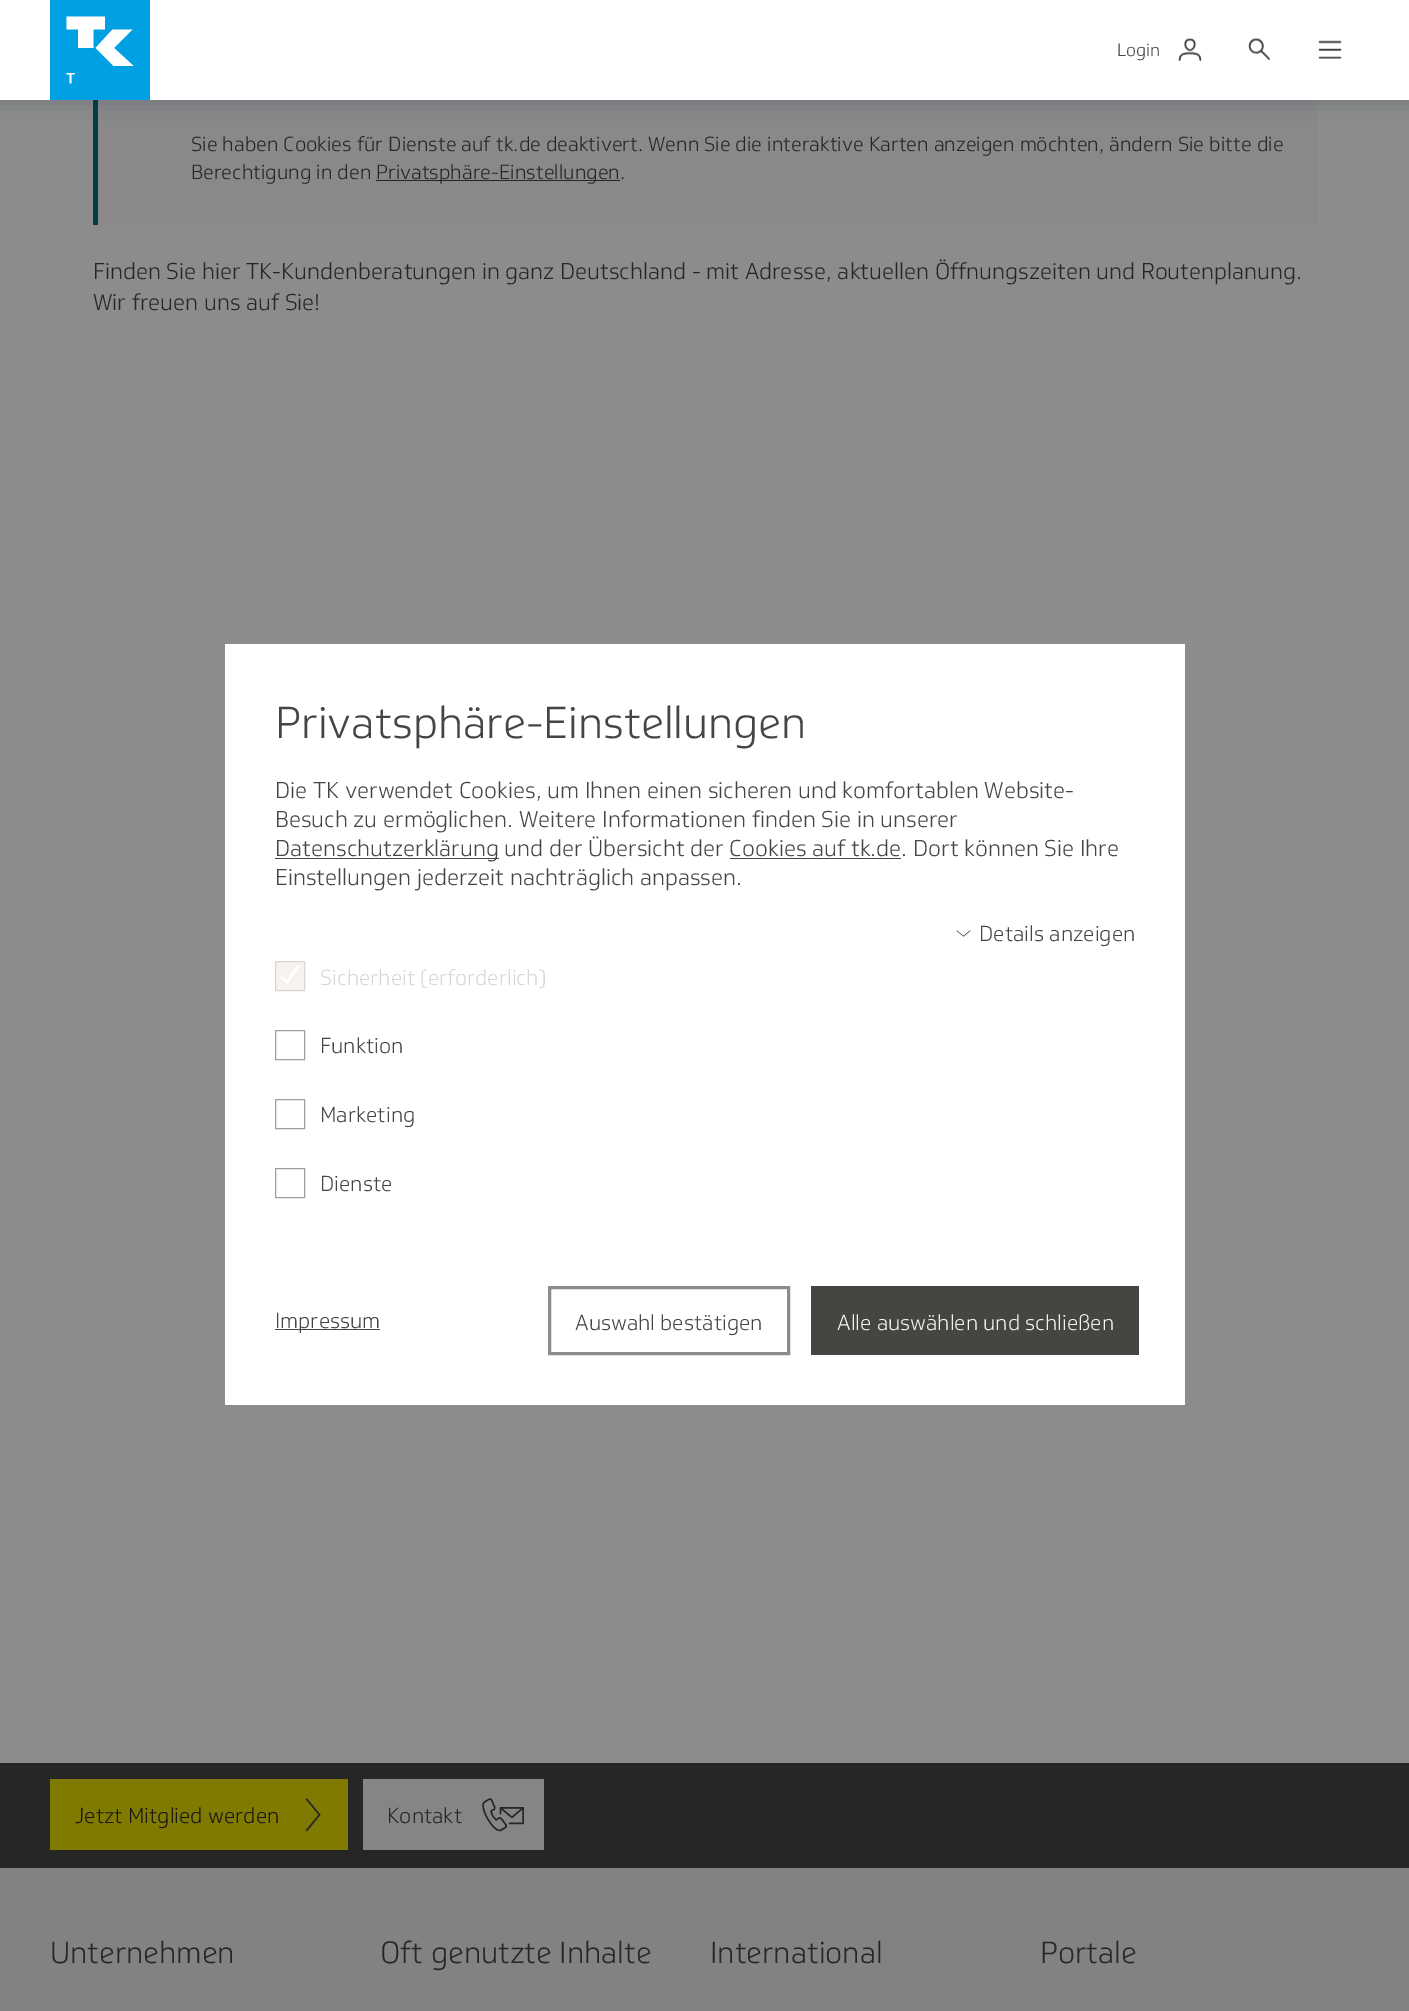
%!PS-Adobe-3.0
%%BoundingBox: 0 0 1409 2011
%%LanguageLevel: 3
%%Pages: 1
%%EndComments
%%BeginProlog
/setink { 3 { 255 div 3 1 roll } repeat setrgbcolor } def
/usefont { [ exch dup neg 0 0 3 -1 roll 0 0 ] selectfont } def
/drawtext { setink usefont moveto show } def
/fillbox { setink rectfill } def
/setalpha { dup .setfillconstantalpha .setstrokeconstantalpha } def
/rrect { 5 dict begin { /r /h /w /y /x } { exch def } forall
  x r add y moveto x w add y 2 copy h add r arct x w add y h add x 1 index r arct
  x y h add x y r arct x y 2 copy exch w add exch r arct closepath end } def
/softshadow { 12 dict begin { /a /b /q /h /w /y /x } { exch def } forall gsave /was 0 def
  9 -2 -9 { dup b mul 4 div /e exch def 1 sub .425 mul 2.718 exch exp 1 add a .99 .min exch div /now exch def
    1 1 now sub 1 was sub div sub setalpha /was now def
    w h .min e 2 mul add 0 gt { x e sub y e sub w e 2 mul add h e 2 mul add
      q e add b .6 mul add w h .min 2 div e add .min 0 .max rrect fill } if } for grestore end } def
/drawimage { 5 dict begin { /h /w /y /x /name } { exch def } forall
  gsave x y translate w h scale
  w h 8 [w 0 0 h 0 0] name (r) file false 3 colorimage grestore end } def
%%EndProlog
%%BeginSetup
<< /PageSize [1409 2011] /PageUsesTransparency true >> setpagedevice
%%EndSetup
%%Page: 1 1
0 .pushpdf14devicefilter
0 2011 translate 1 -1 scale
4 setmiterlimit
0 0 1409 2011 140 140 140 fillbox
98 100 1220 125 138 137 136 fillbox
93 100 5 125 0 61 76 fillbox
7 44 75 setink
0 3 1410 100 0 10 0.2 softshadow
0 0 1409 100 255 255 255 fillbox
50 0 100 100 0 160 227 fillbox
255 255 255 setink
93.5 29.5 moveto 93.5 48 lineto 78 48 lineto 78 29.5 lineto 66.5 29.5 lineto 66.5 16.5 lineto 105 16.5 lineto 105 29.5 lineto closepath fill
112.5 29.5 moveto 132.5 29.5 lineto 114 48 lineto 133.5 66 lineto 113.5 66 lineto 95.5 48 lineto closepath fill
75 73 moveto 74.5 74.5 lineto 71.5 74.5 lineto 71.5 83.5 lineto 69.5 83.5 lineto 69.5 74.5 lineto 66.5 74.5 lineto 66.5 73 lineto closepath fill
(Login) 1117 56 /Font-Light 17.5 69 69 66 drawtext
(assets/img1.rgb) 1178 37 24 25 drawimage
(assets/img2.rgb) 1248 37 22 23 drawimage
(assets/img3.rgb) 1318 40 24 19 drawimage
(Sie haben Cookies für Dienste auf tk.de deaktivert. Wenn Sie die interaktive Karten anzeigen möchten, ändern Sie bitte die) 191 151 /Font-Light 20 38 38 36 drawtext
(Berechtigung in den) 191 179 /Font-Light 20 38 38 36 drawtext
376 180 244 1 38 38 36 fillbox
(Privatsphäre-Einstellungen.) 376 179 /Font-Light 20 38 38 36 drawtext
(Finden Sie hier TK-Kundenberatungen in ganz Deutschland - mit Adresse, aktuellen Öffnungszeiten und Routenplanung.) 93 279 /Font-Light 22.5 38 38 36 drawtext
(Wir freuen uns auf Sie!) 93 310 /Font-Light 22.5 38 38 36 drawtext
0 1868 1409 143 130 130 130 fillbox
225 644 960 761 255 255 255 fillbox
(Privatsphäre-Einstellungen) 275 738 /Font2-Light 43.75 69 69 66 drawtext
(Die TK verwendet Cookies, um Ihnen einen sicheren und komfortablen Website-) 275 798 /Font-Light 22.5 69 69 66 drawtext
(Besuch zu ermöglichen. Weitere Informationen finden Sie in unserer) 275 827 /Font-Light 22.5 69 69 66 drawtext
275 858 224 1 69 69 66 fillbox
(Datenschutzerklärung und der Übersicht der Cookies auf tk.de. Dort können Sie Ihre) 275 856 /Font-Light 22.5 69 69 66 drawtext
730 858 171 1 69 69 66 fillbox
(Einstellungen jederzeit nachträglich anpassen.) 275 885 /Font-Light 22.5 69 69 66 drawtext
(assets/img4.rgb) 956 930 15 7 drawimage
(Details anzeigen) 979 941 /Font-Light 21.25 69 69 66 drawtext
245 242 239 setink
275.5 961.5 moveto 304.5 961.5 lineto 304.5 990.5 lineto 275.5 990.5 lineto closepath gsave fill grestore
218 214 209 setink
stroke
255 255 255 setink
298 964.5 moveto 300 966 lineto 287.5 983.5 lineto 285.5 982 lineto closepath fill
281.5 976 moveto 289 981.5 lineto 287.5 983.5 lineto 280 978.5 lineto closepath fill
(Sicherheit \(erforderlich\)) 320 985 /Font-Light 21.25 218 214 209 drawtext
160 159 158 setink
275.5 1030.5 29 29 rectstroke
(Funktion) 320 1053 /Font-Light 21.25 69 69 66 drawtext
160 159 158 setink
275.5 1099.5 29 29 rectstroke
(Marketing) 320 1122 /Font-Light 21.25 69 69 66 drawtext
160 159 158 setink
275.5 1168.5 29 29 rectstroke
(Dienste) 320 1191 /Font-Light 21.25 69 69 66 drawtext
275 1329 105 1 69 69 66 fillbox
(Impressum) 275 1328 /Font-Light 21.25 69 69 66 drawtext
140 140 140 setink
3 setlinewidth
549.5 1287.5 239 66 rectstroke
(Auswahl bestätigen) 575 1330 /Font-Light 21.25 69 69 66 drawtext
811 1286 328 69 69 69 66 fillbox
(Alle auswählen und schließen) 837 1330 /Font-Light 21.25 245 242 239 drawtext
0 1763 1409 105 38 38 36 fillbox
50 1779 298 71 128 123 0 fillbox
(Jetzt Mitglied werden) 75 1823 /Font-Light 21.25 23 23 21 drawtext
(assets/img5.rgb) 305 1798 16 34 drawimage
363 1779 181 71 135 133 131 fillbox
(Kontakt) 387 1823 /Font-Light 21.25 38 38 36 drawtext
(assets/img6.rgb) 482 1798 42 34 drawimage
(Unternehmen) 50 1963 /Font2-Light 30 38 38 36 drawtext
(Oft genutzte Inhalte) 380 1963 /Font2-Light 30 38 38 36 drawtext
(International) 710 1963 /Font2-Light 30 38 38 36 drawtext
(Portale) 1040 1963 /Font2-Light 30 38 38 36 drawtext
.poppdf14devicefilter showpage
%%EOF
